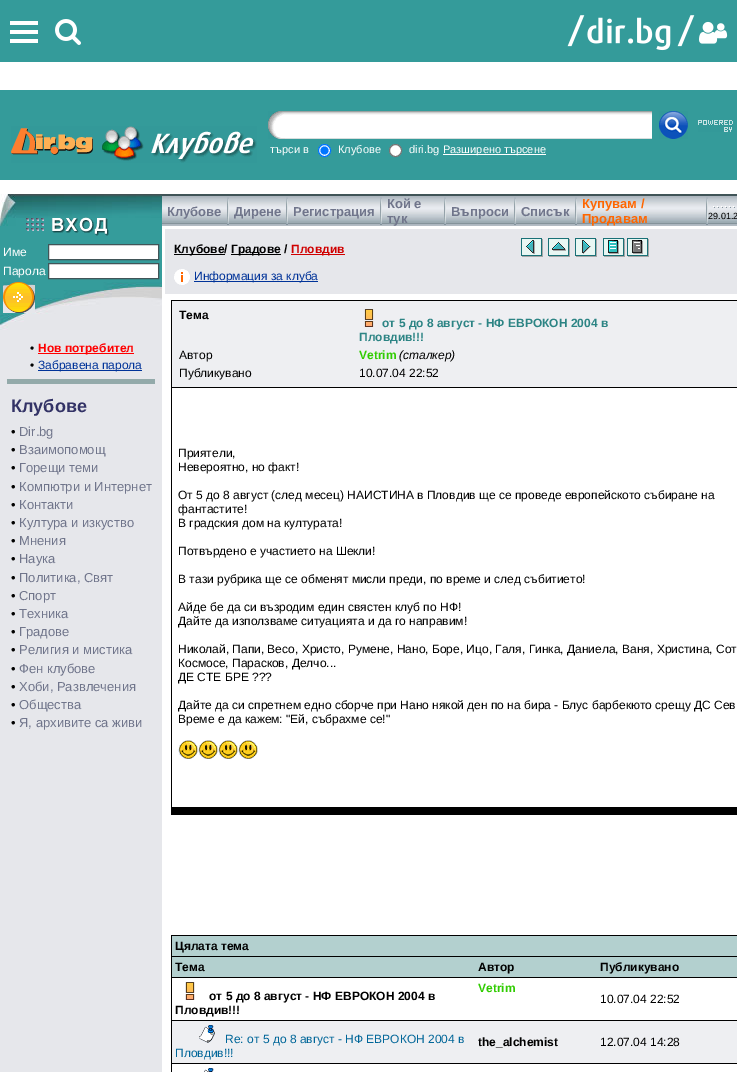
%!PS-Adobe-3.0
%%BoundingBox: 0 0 737 1072
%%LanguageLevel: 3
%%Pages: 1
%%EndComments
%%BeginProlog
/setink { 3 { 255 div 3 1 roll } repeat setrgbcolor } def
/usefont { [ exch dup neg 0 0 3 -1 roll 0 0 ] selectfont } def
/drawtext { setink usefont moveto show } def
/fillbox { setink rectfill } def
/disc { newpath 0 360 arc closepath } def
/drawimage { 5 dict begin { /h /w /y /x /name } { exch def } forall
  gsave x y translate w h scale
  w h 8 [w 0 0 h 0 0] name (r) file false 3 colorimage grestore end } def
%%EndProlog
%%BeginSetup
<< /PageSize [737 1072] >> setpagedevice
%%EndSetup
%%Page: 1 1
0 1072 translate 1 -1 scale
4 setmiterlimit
0 0 737 1072 255 255 255 fillbox
0 0 737 62 52 155 154 fillbox
10 30 28 4 255 255 255 fillbox
10 21 28 4 255 255 255 fillbox
10 39 28 4 255 255 255 fillbox
(assets/img1.rgb) 55 19 26 26 drawimage
(assets/img2.rgb) 567 15 128 36 drawimage
(assets/img3.rgb) 699 21 29 23 drawimage
0 90 737 90 52 155 154 fillbox
(assets/img4.rgb) 11 126 246 37 drawimage
(assets/img5.rgb) 268 111 384 28 drawimage
(assets/img6.rgb) 659 111 29 28 drawimage
(assets/img7.rgb) 698 120 35 12 drawimage
(търси в) 270 153 /LiberationSans-Regular 11 255 255 255 drawtext
324.5 150.5 6 disc gsave fill grestore
0 117 255 setink
stroke
324.5 150.5 4 disc fill
(Клубове) 338 153 /LiberationSans-Regular 11 255 255 255 drawtext
395.5 150.5 6 disc gsave fill grestore
118 118 118 setink
stroke
(diri.bg) 409 153 /LiberationSans-Regular 11 255 255 255 drawtext
443 154 103 1 255 255 255 fillbox
(Разширено търсене) 443 153 /LiberationSans-Regular 11 255 255 255 drawtext
0 330 162 742 230 231 235 fillbox
(assets/img8.rgb) 0 194 162 136 drawimage
(assets/img9.rgb) 26 217 83 19 drawimage
(Име) 3 256 /LiberationSans-Regular 12 255 255 255 drawtext
48.5 244.5 moveto 158.5 244.5 lineto 158.5 259.5 lineto 48.5 259.5 lineto closepath gsave fill grestore
65 85 88 setink
stroke
(Парола) 3 275 /LiberationSans-Regular 12 255 255 255 drawtext
48.5 263.5 moveto 158.5 263.5 lineto 158.5 278.5 lineto 48.5 278.5 lineto closepath gsave fill grestore
65 85 88 setink
stroke
(assets/img10.rgb) 3 282 32 31 drawimage
(•) 30 352 /LiberationSans-Regular 12 0 0 0 drawtext
38 353 96 1 255 0 0 fillbox
(Нов потребител) 38 352 /LiberationSans-Bold 12 255 0 0 drawtext
(•) 30 369 /LiberationSans-Regular 12 0 0 0 drawtext
38 370 104 1 0 51 153 fillbox
(Забравена парола) 38 369 /LiberationSans-Regular 12 0 51 153 drawtext
7 379 148 5 147 170 170 fillbox
(Клубове) 11 412 /LiberationSans-Bold 18 51 51 102 drawtext
(•) 11 436 /LiberationSans-Regular 13 0 0 0 drawtext
(Dir.bg) 19 436 /LiberationSans-Regular 13 112 117 139 drawtext
(•) 11 454 /LiberationSans-Regular 13 0 0 0 drawtext
(Взаимопомощ) 19 454 /LiberationSans-Regular 13 112 117 139 drawtext
(•) 11 472 /LiberationSans-Regular 13 0 0 0 drawtext
(Горещи теми) 19 472 /LiberationSans-Regular 13 112 117 139 drawtext
(•) 11 491 /LiberationSans-Regular 13 0 0 0 drawtext
(Компютри и Интернет) 19 491 /LiberationSans-Regular 13 112 117 139 drawtext
(•) 11 509 /LiberationSans-Regular 13 0 0 0 drawtext
(Контакти) 19 509 /LiberationSans-Regular 13 112 117 139 drawtext
(•) 11 527 /LiberationSans-Regular 13 0 0 0 drawtext
(Култура и изкуство) 19 527 /LiberationSans-Regular 13 112 117 139 drawtext
(•) 11 545 /LiberationSans-Regular 13 0 0 0 drawtext
(Мнения) 19 545 /LiberationSans-Regular 13 112 117 139 drawtext
(•) 11 563 /LiberationSans-Regular 13 0 0 0 drawtext
(Наука) 19 563 /LiberationSans-Regular 13 112 117 139 drawtext
(•) 11 582 /LiberationSans-Regular 13 0 0 0 drawtext
(Политика, Свят) 19 582 /LiberationSans-Regular 13 112 117 139 drawtext
(•) 11 600 /LiberationSans-Regular 13 0 0 0 drawtext
(Спорт) 19 600 /LiberationSans-Regular 13 112 117 139 drawtext
(•) 11 618 /LiberationSans-Regular 13 0 0 0 drawtext
(Техника) 19 618 /LiberationSans-Regular 13 112 117 139 drawtext
(•) 11 636 /LiberationSans-Regular 13 0 0 0 drawtext
(Градове) 19 636 /LiberationSans-Regular 13 112 117 139 drawtext
(•) 11 654 /LiberationSans-Regular 13 0 0 0 drawtext
(Религия и мистика) 19 654 /LiberationSans-Regular 13 112 117 139 drawtext
(•) 11 673 /LiberationSans-Regular 13 0 0 0 drawtext
(Фен клубове) 19 673 /LiberationSans-Regular 13 112 117 139 drawtext
(•) 11 691 /LiberationSans-Regular 13 0 0 0 drawtext
(Хоби, Развлечения) 19 691 /LiberationSans-Regular 13 112 117 139 drawtext
(•) 11 709 /LiberationSans-Regular 13 0 0 0 drawtext
(Общества) 19 709 /LiberationSans-Regular 13 112 117 139 drawtext
(•) 11 727 /LiberationSans-Regular 13 0 0 0 drawtext
(Я, архивите са живи) 19 727 /LiberationSans-Regular 13 112 117 139 drawtext
162 194 575 2 64 84 87 fillbox
(assets/img11.rgb) 162 196 575 30 drawimage
(Клубове) 167 216 /LiberationSans-Bold 13 112 117 139 drawtext
(assets/img12.rgb) 227 197 2 28 drawimage
(Дирене) 234 216 /LiberationSans-Bold 13 112 117 139 drawtext
(assets/img12.rgb) 286 197 2 28 drawimage
(Регистрация) 293 216 /LiberationSans-Bold 13 112 117 139 drawtext
(assets/img12.rgb) 380 197 2 28 drawimage
(Кой е) 387 208 /LiberationSans-Bold 13 112 117 139 drawtext
(тук) 387 223 /LiberationSans-Bold 13 112 117 139 drawtext
(assets/img12.rgb) 444 197 2 28 drawimage
(Въпроси) 451 216 /LiberationSans-Bold 13 112 117 139 drawtext
(assets/img12.rgb) 514 197 2 28 drawimage
(Списък) 521 216 /LiberationSans-Bold 13 112 117 139 drawtext
(assets/img12.rgb) 575 197 2 28 drawimage
(Купувам /) 582 208 /LiberationSans-Bold 13 255 102 0 drawtext
(Продавам) 582 223 /LiberationSans-Bold 13 255 102 0 drawtext
(assets/img12.rgb) 706 197 2 28 drawimage
(assets/img13.rgb) 713 206 22 2 drawimage
(29.01.2) 708 219 /LiberationSans-Regular 9 0 0 0 drawtext
165 229 572 65 230 231 235 fillbox
174 254 51 1 0 0 0 fillbox
(Клубове/) 174 253 /LiberationSans-Bold 12 0 0 0 drawtext
231 254 50 1 0 0 0 fillbox
(Градове /) 231 253 /LiberationSans-Bold 12 0 0 0 drawtext
291 254 54 1 208 0 0 fillbox
(Пловдив) 291 253 /LiberationSans-Bold 12 208 0 0 drawtext
(assets/img14.rgb) 521 238 22 19 drawimage
(assets/img15.rgb) 548 238 22 19 drawimage
(assets/img16.rgb) 575 238 22 19 drawimage
(assets/img17.rgb) 603 238 22 19 drawimage
(assets/img18.rgb) 627 238 22 19 drawimage
(assets/img19.rgb) 174 269 16 16 drawimage
194 281 124 1 0 51 153 fillbox
(Информация за клуба) 194 280 /LiberationSans-Regular 12 0 51 153 drawtext
171 300 566 515 0 0 0 fillbox
172 301 565 86 238 239 242 fillbox
(Тема) 179 319 /LiberationSans-Bold 12 0 0 0 drawtext
(assets/img20.rgb) 364 309 10 18 drawimage
(от 5 до 8 август - НФ ЕВРОКОН 2004 в) 382 327 /LiberationSans-Bold 12 44 132 132 drawtext
(Пловдив!!!) 359 341 /LiberationSans-Bold 12 44 132 132 drawtext
(Автор) 179 359 /LiberationSans-Regular 12 0 0 0 drawtext
(Vetrim) 359 359 /LiberationSans-Bold 12 48 204 0 drawtext
(\(сталкер\)) 399 359 /LiberationSans-Italic 12 0 0 0 drawtext
(Публикувано) 179 377 /LiberationSans-Regular 12 0 0 0 drawtext
(10.07.04 22:52) 359 377 /LiberationSans-Regular 12 0 0 0 drawtext
172 388 565 419 255 255 255 fillbox
(Приятели,) 178 457 /LiberationSans-Regular 12 0 0 0 drawtext
(Невероятно, но факт!) 178 471 /LiberationSans-Regular 12 0 0 0 drawtext
(От 5 до 8 август \(след месец\) НАИСТИНА в Пловдив ще се проведе европейското събиране на) 178 499 /LiberationSans-Regular 12 0 0 0 drawtext
(фантастите!) 178 513 /LiberationSans-Regular 12 0 0 0 drawtext
(В градския дом на културата!) 178 527 /LiberationSans-Regular 12 0 0 0 drawtext
(Потвърдено е участието на Шекли!) 178 555 /LiberationSans-Regular 12 0 0 0 drawtext
(В тази рубрика ще се обменят мисли преди, по време и след събитието!) 178 583 /LiberationSans-Regular 12 0 0 0 drawtext
(Айде бе да си възродим един свястен клуб по НФ!) 178 611 /LiberationSans-Regular 12 0 0 0 drawtext
(Дайте да използваме ситуацията и да го направим!) 178 625 /LiberationSans-Regular 12 0 0 0 drawtext
(Николай, Папи, Весо, Христо, Румене, Нано, Боре, Ицо, Галя, Гинка, Даниела, Ваня, Христина, Сот) 178 653 /LiberationSans-Regular 12 0 0 0 drawtext
(Космосе, Парасков, Делчо...) 178 667 /LiberationSans-Regular 12 0 0 0 drawtext
(ДЕ СТЕ БРЕ ???) 178 681 /LiberationSans-Regular 12 0 0 0 drawtext
(Дайте да си спретнем едно сборче при Нано някой ден по на бира - Блус барбекюто срещу ДС Сев) 178 709 /LiberationSans-Regular 12 0 0 0 drawtext
(Време е да кажем: "Ей, събрахме се!") 178 723 /LiberationSans-Regular 12 0 0 0 drawtext
(assets/img21.rgb) 178 740 20 19 drawimage
(assets/img21.rgb) 198 740 20 19 drawimage
(assets/img21.rgb) 218 740 20 19 drawimage
(assets/img21.rgb) 238 740 20 19 drawimage
171 935 566 137 0 0 0 fillbox
172 936 565 20 179 208 207 fillbox
(Цялата тема) 175 950 /LiberationSans-Bold 12 0 0 0 drawtext
172 957 565 20 179 208 207 fillbox
(Тема) 175 971 /LiberationSans-Bold 12 0 0 0 drawtext
(Автор) 478 971 /LiberationSans-Bold 12 0 0 0 drawtext
(Публикувано) 600 971 /LiberationSans-Bold 12 0 0 0 drawtext
172 978 565 42 255 255 255 fillbox
(Vetrim) 478 992 /LiberationSans-Bold 12 48 204 0 drawtext
(assets/img22.rgb) 185 982 10 18 drawimage
(от 5 до 8 август - НФ ЕВРОКОН 2004 в) 209 1000 /LiberationSans-Bold 12 0 0 0 drawtext
(Пловдив!!!) 175 1014 /LiberationSans-Bold 12 0 0 0 drawtext
(10.07.04 22:52) 600 1003 /LiberationSans-Regular 12 0 0 0 drawtext
172 1021 565 42 238 239 242 fillbox
(assets/img23.rgb) 199 1025 16 18 drawimage
(Re: от 5 до 8 август - НФ ЕВРОКОН 2004 в) 225 1043 /LiberationSans-Regular 12 0 102 153 drawtext
(Пловдив!!!) 175 1057 /LiberationSans-Regular 12 0 102 153 drawtext
(the_alchemist) 478 1046 /LiberationSans-Bold 12 0 0 0 drawtext
(12.07.04 14:28) 600 1046 /LiberationSans-Regular 12 0 0 0 drawtext
172 1064 565 8 255 255 255 fillbox
(assets/img24.rgb) 204 1068 10 4 drawimage
showpage
%%EOF
